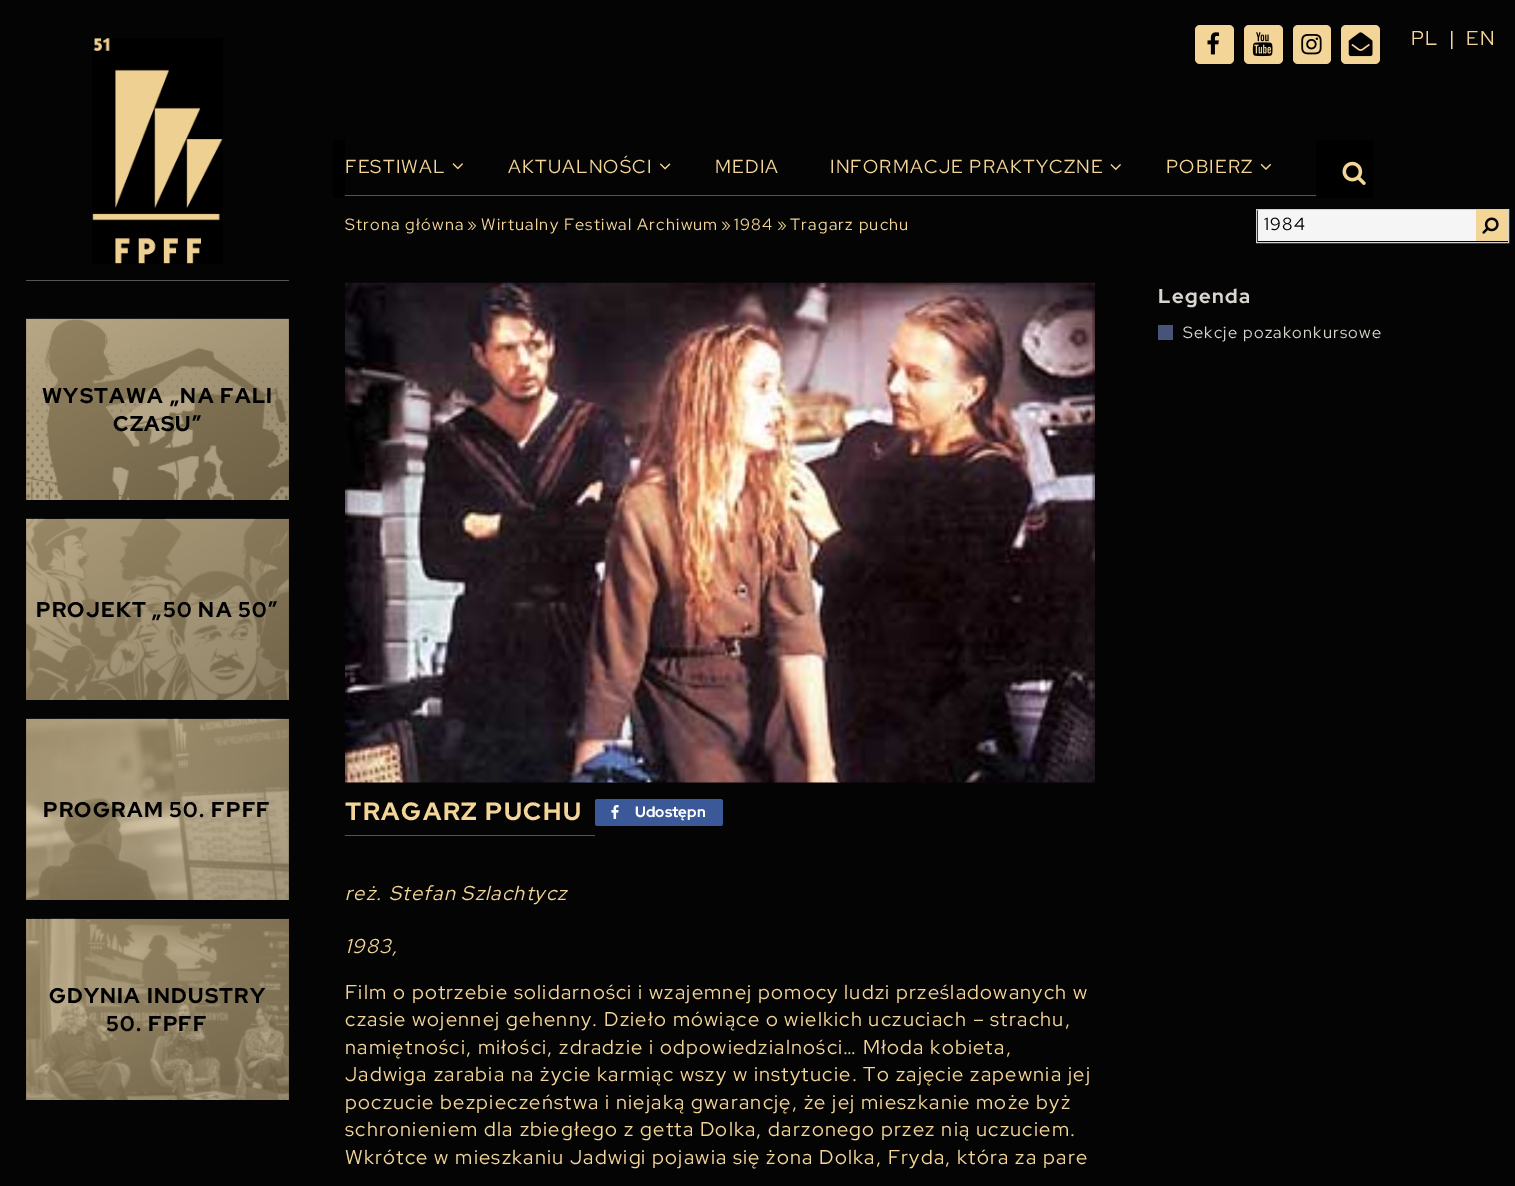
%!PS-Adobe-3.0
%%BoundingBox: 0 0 1515 1186
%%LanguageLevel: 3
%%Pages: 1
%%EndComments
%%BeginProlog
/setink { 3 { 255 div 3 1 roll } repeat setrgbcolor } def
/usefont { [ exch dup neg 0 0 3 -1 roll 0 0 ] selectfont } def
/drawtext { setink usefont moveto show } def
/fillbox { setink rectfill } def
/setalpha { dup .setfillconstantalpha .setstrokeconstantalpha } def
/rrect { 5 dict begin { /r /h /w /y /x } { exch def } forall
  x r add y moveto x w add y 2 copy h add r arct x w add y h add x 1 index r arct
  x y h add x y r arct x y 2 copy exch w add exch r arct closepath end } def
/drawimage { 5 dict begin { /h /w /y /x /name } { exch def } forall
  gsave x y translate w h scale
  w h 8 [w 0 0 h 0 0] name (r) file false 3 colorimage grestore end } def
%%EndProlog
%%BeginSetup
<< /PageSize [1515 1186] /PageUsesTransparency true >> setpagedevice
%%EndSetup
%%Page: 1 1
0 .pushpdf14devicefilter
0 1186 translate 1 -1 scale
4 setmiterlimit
0 0 1515 1186 4 4 4 fillbox
(assets/img1.rgb) 92 38 131 226 drawimage
26 280 263 1 85 85 85 fillbox
(assets/img2.rgb) 26 318 263 182 drawimage
0.55 setalpha
gsave 26 319 moveto 289 319 lineto 289 500 lineto 26 500 lineto closepath clip newpath
<< /ShadingType 2 /ColorSpace /DeviceRGB /Coords [230 534 85 285] /Extend [true true] /Function << /FunctionType 2 /Domain [0 1] /C0 [0.667 0.576 0.38] /C1 [0.953 0.835 0.592] /N 1 >> >> shfill grestore
/RedHatDisplay-Bold 21.25 usefont
1 setalpha
0 0 0 setink
42 403 moveto 1.25 0 (WYSTAWA „NA FALI) ashow
113 431 moveto 1.25 0 (CZASU”) ashow
(assets/img3.rgb) 26 518 263 182 drawimage
0.55 setalpha
gsave 26 519 moveto 289 519 lineto 289 700 lineto 26 700 lineto closepath clip newpath
<< /ShadingType 2 /ColorSpace /DeviceRGB /Coords [230 734 85 485] /Extend [true true] /Function << /FunctionType 2 /Domain [0 1] /C0 [0.667 0.576 0.38] /C1 [0.953 0.835 0.592] /N 1 >> >> shfill grestore
1 setalpha
36 617 moveto 1.25 0 (PROJEKT „50 NA 50”) ashow
(assets/img4.rgb) 26 718 263 182 drawimage
0.55 setalpha
gsave 26 719 moveto 289 719 lineto 289 900 lineto 26 900 lineto closepath clip newpath
<< /ShadingType 2 /ColorSpace /DeviceRGB /Coords [230 934 85 685] /Extend [true true] /Function << /FunctionType 2 /Domain [0 1] /C0 [0.667 0.576 0.38] /C1 [0.953 0.835 0.592] /N 1 >> >> shfill grestore
1 setalpha
43 817 moveto 1.25 0 (PROGRAM 50. FPFF) ashow
(assets/img5.rgb) 26 918 263 182 drawimage
0.55 setalpha
gsave 26 919 moveto 289 919 lineto 289 1100 lineto 26 1100 lineto closepath clip newpath
<< /ShadingType 2 /ColorSpace /DeviceRGB /Coords [230 1134 85 885] /Extend [true true] /Function << /FunctionType 2 /Domain [0 1] /C0 [0.667 0.576 0.38] /C1 [0.953 0.835 0.592] /N 1 >> >> shfill grestore
1 setalpha
49 1003 moveto 1.25 0 (GDYNIA INDUSTRY) ashow
106 1031 moveto 1.25 0 (50. FPFF) ashow
243 213 151 setink
1195 25 39 39 5 rrect fill
(assets/img6.rgb) 1207 32 12 23 drawimage
1244 25 39 39 5 rrect fill
(assets/img7.rgb) 1252 32 21 25 drawimage
1293 25 38 39 5 rrect fill
(assets/img8.rgb) 1301 34 21 21 drawimage
1341 25 39 39 5 rrect fill
(assets/img9.rgb) 1348 32 25 25 drawimage
/RedHatDisplay-Regular 20 usefont
1411 45 moveto 1.25 0 (PL) ashow
1449 45 moveto 1.25 0 (|) ashow
1466 45 moveto 1.25 0 (EN) ashow
333 140 1040 58 0 0 0 fillbox
345 140 971 58 4 4 4 fillbox
/RedHatDisplay-Regular 18.75 usefont
243 213 151 setink
345 173 moveto 1.25 0 (FESTIWAL) ashow
(assets/img10.rgb) 452 163 11 7 drawimage
508 173 moveto 1.25 0 (AKTUALNOŚCI) ashow
(assets/img11.rgb) 659 163 12 7 drawimage
715 173 moveto 1.25 0 (MEDIA) ashow
830 173 moveto 1.25 0 (INFORMACJE PRAKTYCZNE) ashow
(assets/img12.rgb) 1110 164 11 7 drawimage
1166 173 moveto 1.25 0 (POBIERZ) ashow
(assets/img13.rgb) 1260 163 12 7 drawimage
345 195 971 1 85 85 85 fillbox
(assets/img14.rgb) 1342 161 24 24 drawimage
/RedHatDisplay-Regular 16.25 usefont
243 213 151 setink
345 230 moveto 1.25 0 (Strona główna) ashow
467 230 moveto 1.25 0 (») ashow
481 230 moveto 1.25 0 (Wirtualny Festiwal Archiwum) ashow
721 230 moveto 1.25 0 (») ashow
734 230 moveto 1.25 0 (1984) ashow
777 230 moveto 1.25 0 (») ashow
790 230 moveto 1.25 0 (Tragarz puchu) ashow
210 210 210 setink
1256.5 209.5 252 33 rectstroke
1258 210 218 31 245 245 245 fillbox
/RedHatDisplay-Regular 17.5 usefont
0 0 0 setink
1264 230 moveto 1.25 0 (1984) ashow
1476 210 32 31 243 213 151 fillbox
(assets/img15.rgb) 1482 217 17 17 drawimage
/RedHatDisplay-Bold 20 usefont
216 213 206 setink
1158 303 moveto 1.25 0 (Legenda) ashow
1158 325 15 15 71 84 119 fillbox
/RedHatDisplay-Regular 16.25 usefont
216 213 206 setink
1183 338 moveto 1.25 0 (Sekcje pozakonkursowe) ashow
(assets/img16.rgb) 345 282 750 501 drawimage
/RedHatDisplay-Bold 25 usefont
243 213 151 setink
345 820 moveto 1.6 0 (TRAGARZ PUCHU) ashow
345 835 250 1 85 85 85 fillbox
59 89 152 setink
595 799 128 27 2.5 rrect fill
(assets/img17.rgb) 611 805 8 14 drawimage
gsave
635 804 70 17 rectclip
(Udostępn) 635 817 /RedHatDisplay-Bold 15 255 255 255 drawtext
grestore
/RedHatDisplay-Italic 20 usefont
243 213 151 setink
345 900 moveto 1.25 0 (reż.) ashow
389 900 moveto 1.25 0 (Stefan Szlachtycz) ashow
345 953 moveto 1.25 0 (1983,) ashow
/RedHatDisplay-Regular 20 usefont
345 999 moveto 1.25 0 (Film o potrzebie solidarności i wzajemnej pomocy ludzi prześladowanych w) ashow
345 1026 moveto 1.25 0 (czasie wojennej gehenny. Dzieło mówiące o wielkich uczuciach – strachu,) ashow
345 1054 moveto 1.25 0 (namiętności, miłości, zdradzie i odpowiedzialności… Młoda kobieta,) ashow
345 1081 moveto 1.25 0 (Jadwiga zarabia na życie karmiąc wszy w instytucie. To zajęcie zapewnia jej) ashow
345 1109 moveto 1.25 0 (poczucie bezpieczeństwa i niejaką gwarancję, że jej mieszkanie może byż) ashow
345 1136 moveto 1.25 0 (schronieniem dla zbiegłego z getta Dolka, darzonego przez nią uczuciem.) ashow
345 1164 moveto 1.25 0 (Wkrótce w mieszkaniu Jadwigi pojawia się żona Dolka, Fryda, która za pare) ashow
.poppdf14devicefilter showpage
%%EOF
